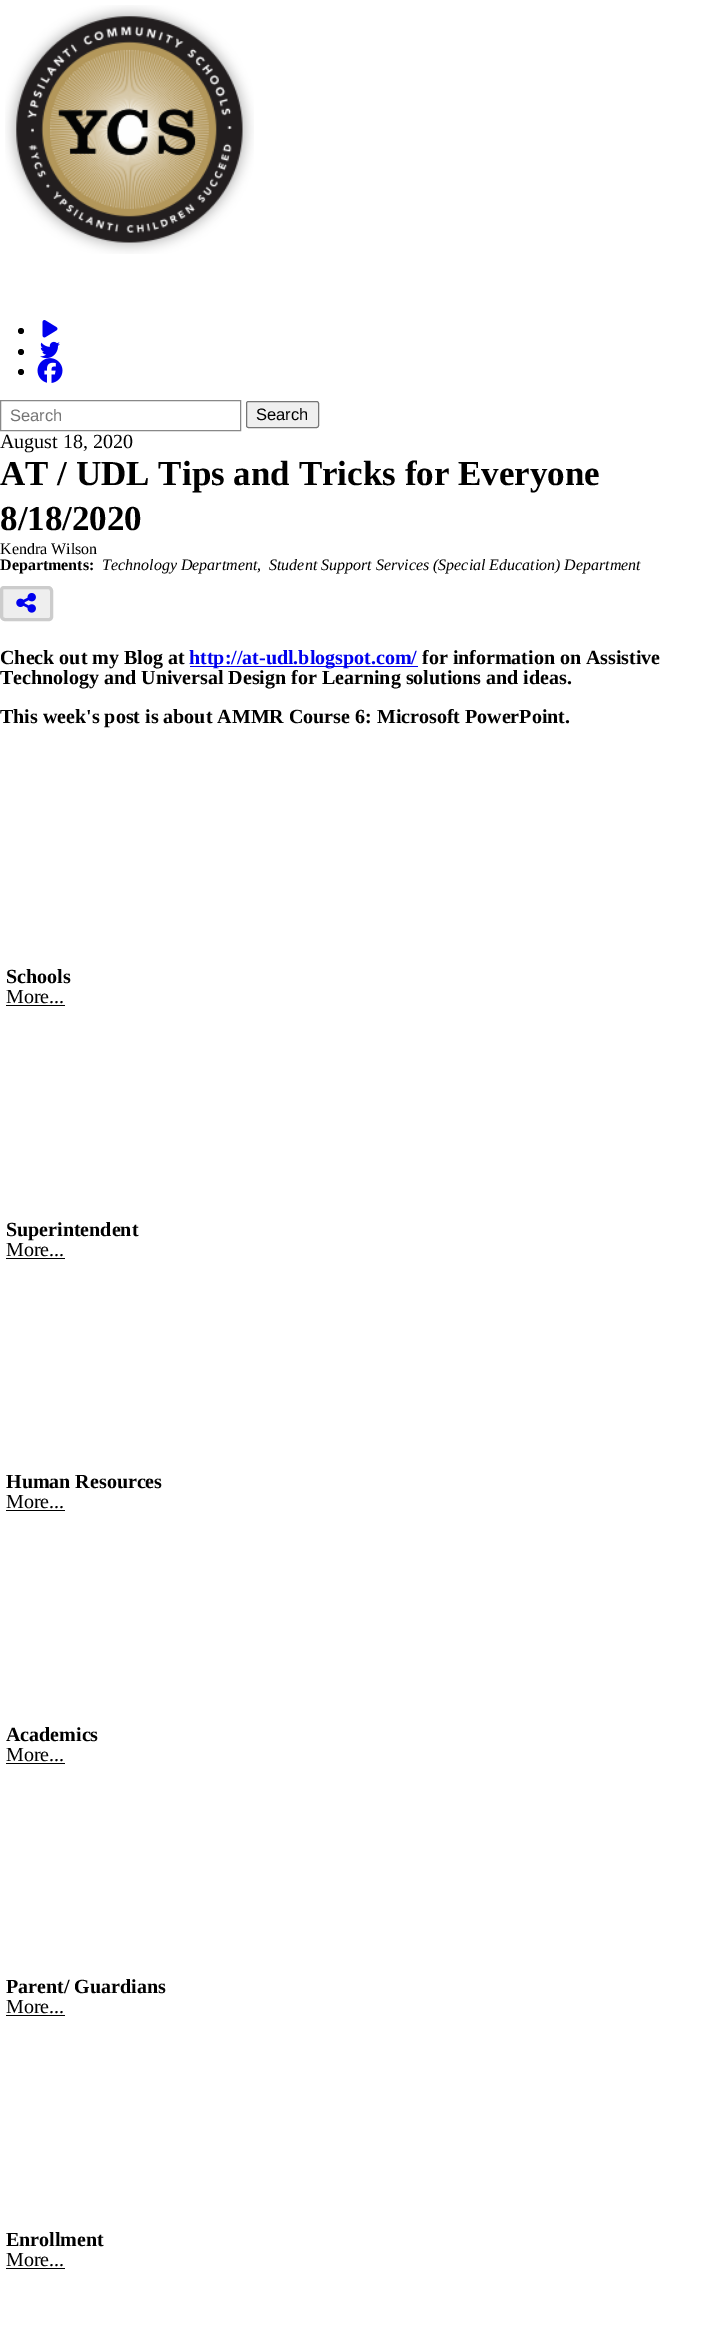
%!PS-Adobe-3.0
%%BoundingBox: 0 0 723 2327
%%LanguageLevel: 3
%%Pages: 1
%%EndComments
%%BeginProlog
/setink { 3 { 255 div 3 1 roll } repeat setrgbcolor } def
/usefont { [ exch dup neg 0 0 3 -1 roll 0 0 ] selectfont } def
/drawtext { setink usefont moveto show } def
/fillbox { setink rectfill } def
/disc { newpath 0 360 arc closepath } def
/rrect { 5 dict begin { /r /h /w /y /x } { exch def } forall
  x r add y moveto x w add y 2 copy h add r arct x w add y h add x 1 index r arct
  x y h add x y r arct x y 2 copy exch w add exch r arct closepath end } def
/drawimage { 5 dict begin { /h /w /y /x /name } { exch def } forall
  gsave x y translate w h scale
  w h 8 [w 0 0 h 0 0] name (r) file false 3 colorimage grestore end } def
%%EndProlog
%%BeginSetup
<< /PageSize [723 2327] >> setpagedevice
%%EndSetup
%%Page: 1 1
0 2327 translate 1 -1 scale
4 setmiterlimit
0 0 723 2327 255 255 255 fillbox
(assets/img1.rgb) 5 5 249 249 drawimage
0 0 0 setink
21 331 3 disc fill
(assets/img2.rgb) 42 320 16 18 drawimage
21 352 3 disc fill
(assets/img3.rgb) 40 341 20 18 drawimage
21 372 3 disc fill
(assets/img4.rgb) 37 358 26 25 drawimage
136 136 136 setink
0.5 400.5 240 30 rectstroke
(Search) 10 421 /LiberationSans-Regular 16.5 117 117 117 drawtext
239 239 239 setink
246.5 401.5 72 26 2 rrect gsave fill grestore
118 118 118 setink
stroke
(Search) 256 420 /LiberationSans-Regular 16.5 0 0 0 drawtext
(August 18, 2020) 0 448 /LiberationSerif-Regular 20 0 0 0 drawtext
(AT / UDL Tips and Tricks for Everyone) 0 485 /LiberationSerif-Bold 35 0 0 0 drawtext
(8/18/2020) 0 530 /LiberationSerif-Bold 35 0 0 0 drawtext
(Kendra Wilson) 0 554 /LiberationSerif-Regular 16 0 0 0 drawtext
(Departments:) 0 570 /LiberationSerif-Bold 16 0 0 0 drawtext
(Technology Department,) 102 570 /LiberationSerif-Italic 16 0 0 0 drawtext
(Student Support Services \(Special Education\) Department) 269 570 /LiberationSerif-Italic 16 0 0 0 drawtext
238 238 238 setink
4 587.5 moveto 48 587.5 lineto 50 587.5 51.5 589 51.5 591 curveto 51.5 617 lineto 51.5 618.5 50.5 619.5 49 619.5 curveto 5 619.5 lineto 3 619.5 1.5 618 1.5 616 curveto 1.5 590 lineto 1.5 588.5 2.5 587.5 4 587.5 curveto closepath gsave fill grestore
204 204 204 setink
3 setlinewidth
stroke
(assets/img5.rgb) 16 593 20 20 drawimage
(Check out my Blog at) 0 664 /LiberationSerif-Bold 20 0 0 0 drawtext
190 666 228 1 0 0 238 fillbox
(http://at-udl.blogspot.com/) 189 664 /LiberationSerif-Bold 20 0 0 238 drawtext
(for information on Assistive) 422 664 /LiberationSerif-Bold 20 0 0 0 drawtext
(Technology and Universal Design for Learning solutions and ideas.) 0 684 /LiberationSerif-Bold 20 0 0 0 drawtext
(This week's post is about AMMR Course 6: Microsoft PowerPoint.) 0 723 /LiberationSerif-Bold 20 0 0 0 drawtext
(Schools) 6 983 /LiberationSerif-Bold 20 0 0 0 drawtext
(More...) 6 1003 /LiberationSerif-Regular 20 0 0 0 drawtext
6 1005 59 1 0 0 0 fillbox
(Superintendent) 6 1236 /LiberationSerif-Bold 20 0 0 0 drawtext
(More...) 6 1256 /LiberationSerif-Regular 20 0 0 0 drawtext
6 1258 59 1 0 0 0 fillbox
(Human Resources) 6 1488 /LiberationSerif-Bold 20 0 0 0 drawtext
(More...) 6 1508 /LiberationSerif-Regular 20 0 0 0 drawtext
6 1510 59 1 0 0 0 fillbox
(Academics) 6 1741 /LiberationSerif-Bold 20 0 0 0 drawtext
(More...) 6 1761 /LiberationSerif-Regular 20 0 0 0 drawtext
6 1763 59 1 0 0 0 fillbox
(Parent/ Guardians) 6 1993 /LiberationSerif-Bold 20 0 0 0 drawtext
(More...) 6 2013 /LiberationSerif-Regular 20 0 0 0 drawtext
6 2015 59 1 0 0 0 fillbox
(Enrollment) 6 2246 /LiberationSerif-Bold 20 0 0 0 drawtext
(More...) 6 2266 /LiberationSerif-Regular 20 0 0 0 drawtext
6 2268 59 1 0 0 0 fillbox
showpage
%%EOF
